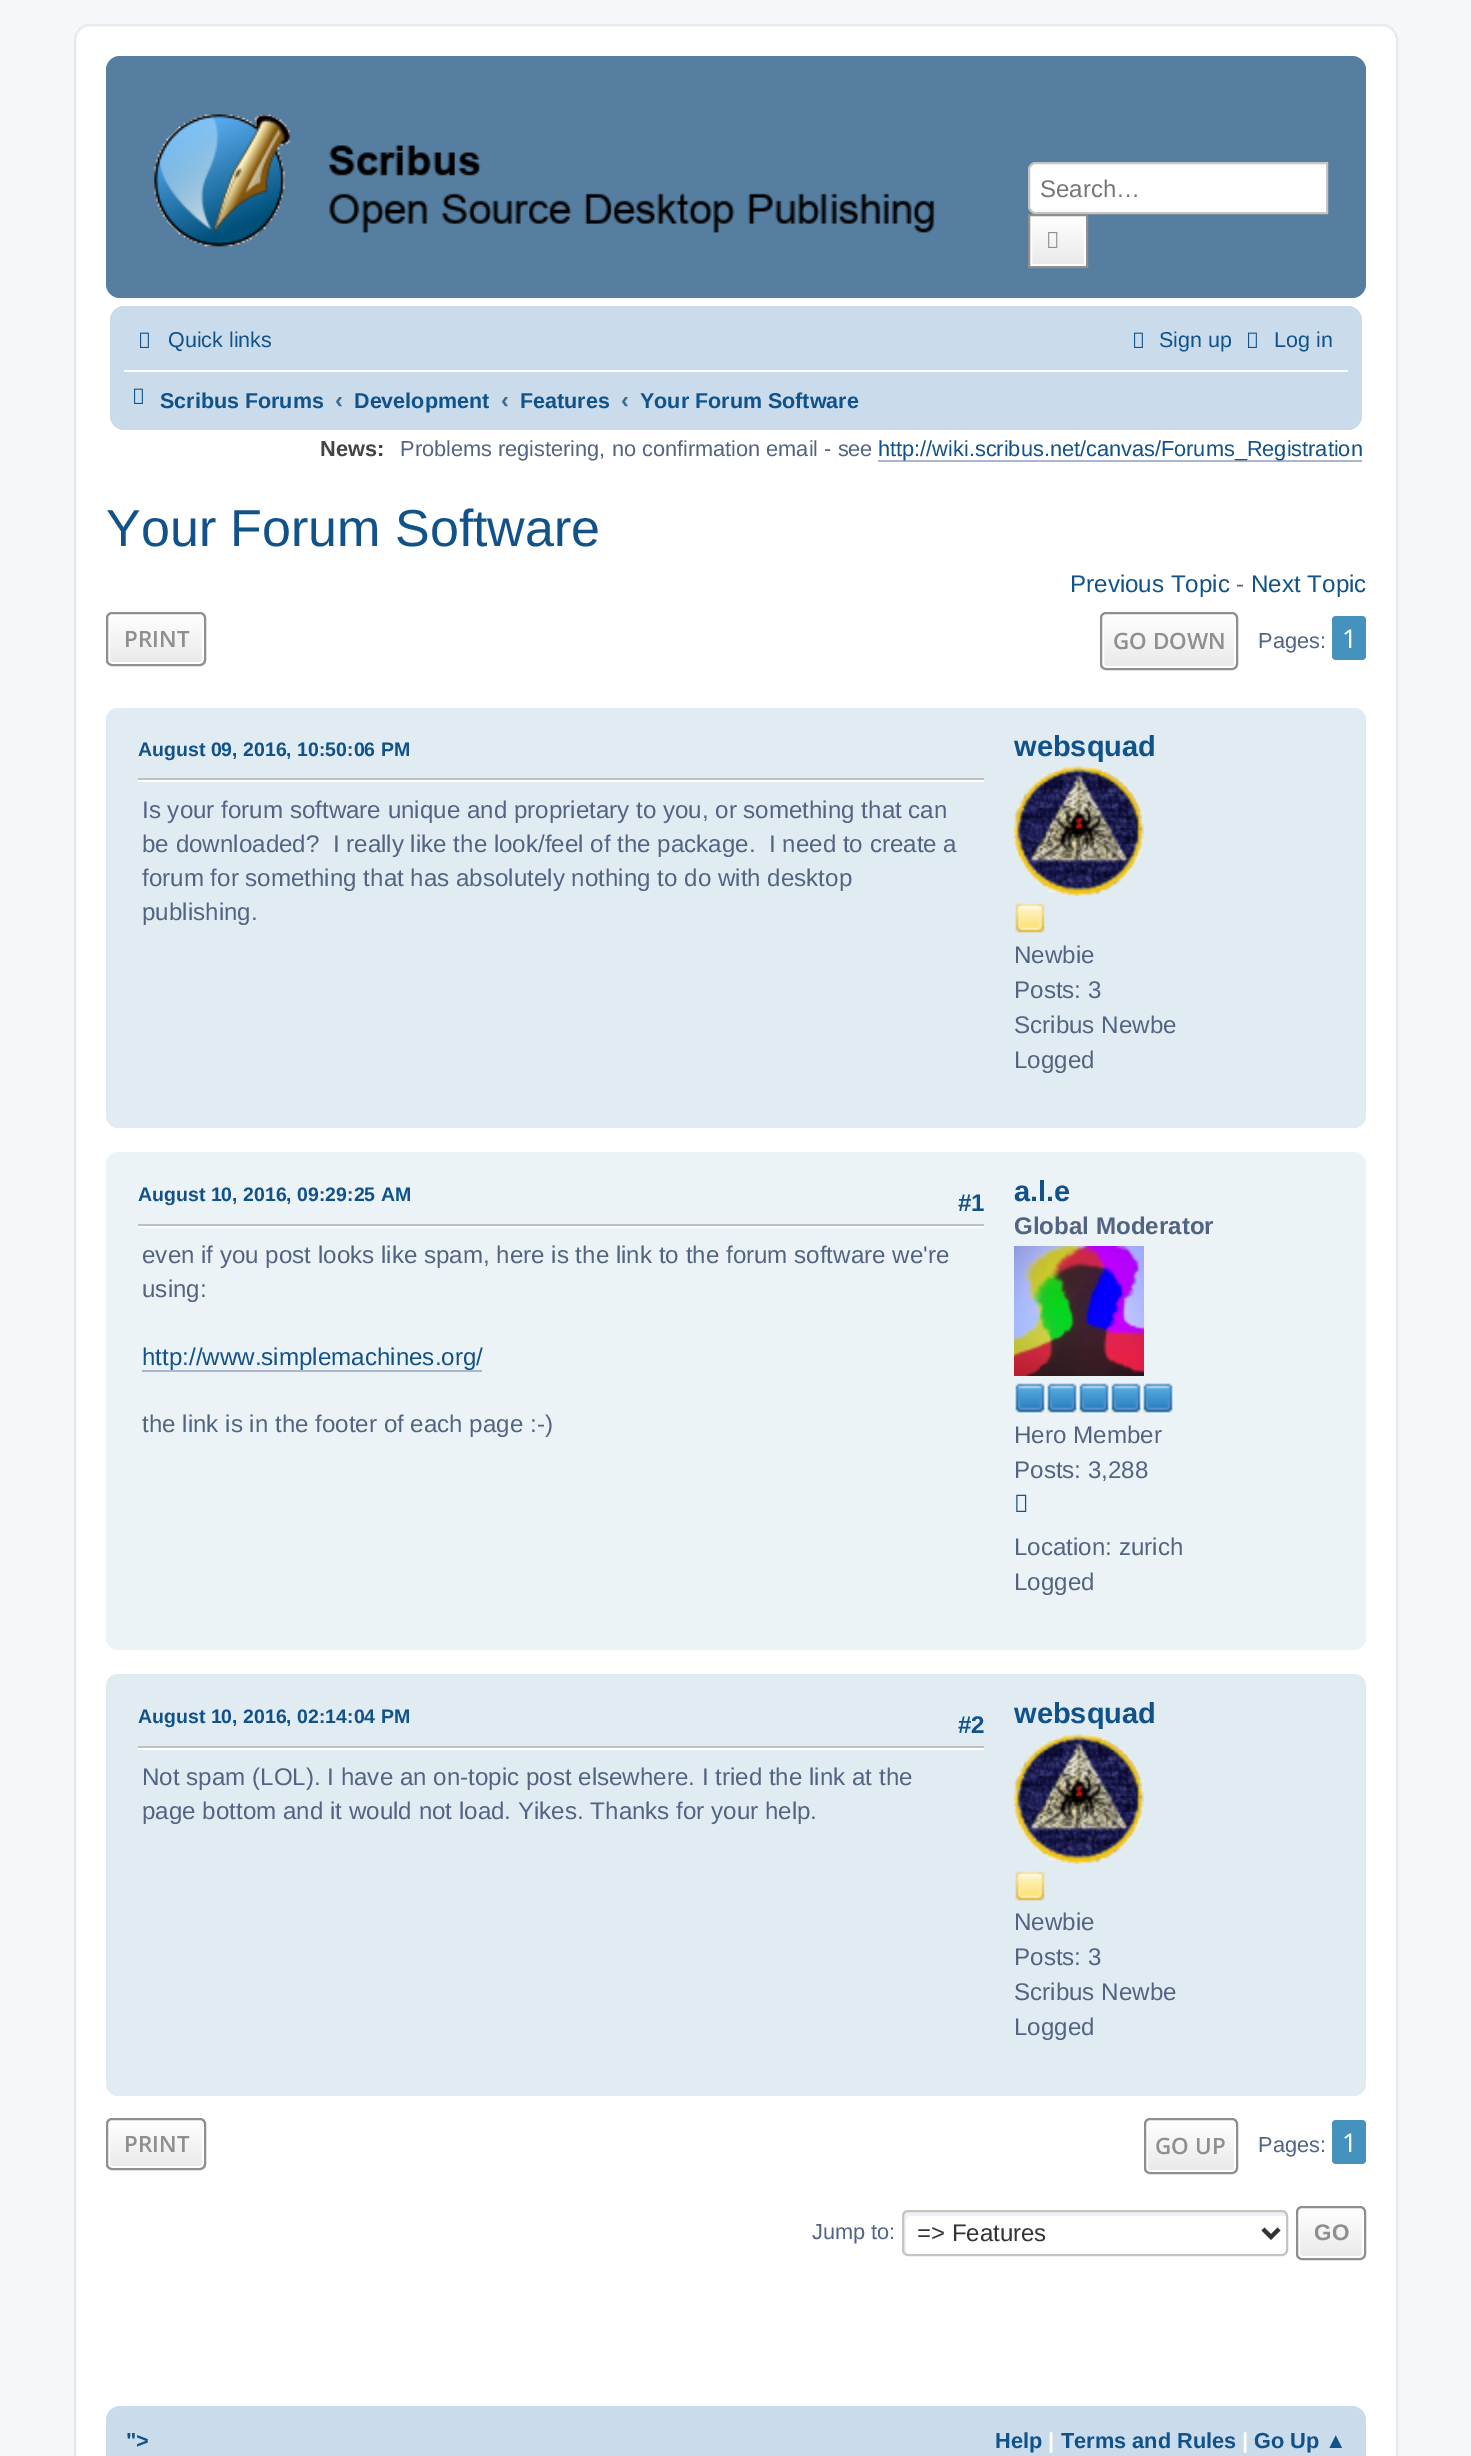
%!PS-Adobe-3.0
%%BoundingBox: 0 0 1471 2456
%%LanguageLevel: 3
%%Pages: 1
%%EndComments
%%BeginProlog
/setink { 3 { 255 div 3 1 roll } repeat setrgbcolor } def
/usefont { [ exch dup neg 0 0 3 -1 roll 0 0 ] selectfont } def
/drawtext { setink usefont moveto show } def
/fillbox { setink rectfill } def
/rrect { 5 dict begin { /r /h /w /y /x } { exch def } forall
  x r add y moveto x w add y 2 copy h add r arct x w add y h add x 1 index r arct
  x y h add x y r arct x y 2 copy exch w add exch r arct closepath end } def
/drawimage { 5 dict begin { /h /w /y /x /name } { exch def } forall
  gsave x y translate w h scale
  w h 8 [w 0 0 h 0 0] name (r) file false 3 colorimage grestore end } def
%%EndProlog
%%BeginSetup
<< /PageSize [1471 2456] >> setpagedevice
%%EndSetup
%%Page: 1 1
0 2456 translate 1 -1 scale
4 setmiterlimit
0 0 1471 2456 245 247 250 fillbox
255 255 255 setink
75 25 1322 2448 15 rrect gsave fill grestore
230 233 237 setink
2 setlinewidth
stroke
85 126 160 setink
106 56 1260 242 14 rrect fill
(assets/img1.rgb) 154 114 781 133 drawimage
255 255 255 setink
1036 163 moveto 1327 163 lineto 1327 213 lineto 1036 213 lineto 1032 213 1029 210 1029 206 curveto 1029 170 lineto 1029 166 1032 163 1036 163 curveto closepath gsave fill grestore
199 195 191 setink
stroke
(Search…) 1040 197 /LiberationSans-Regular 24 117 117 117 drawtext
gsave 1032 218 moveto 1084 218 lineto 1084 264 lineto 1032 264 lineto closepath clip newpath
<< /ShadingType 2 /ColorSpace /DeviceRGB /Coords [1058 216 1058 266] /Extend [true true] /Function << /FunctionType 2 /Domain [0 1] /C0 [1 1 1] /C1 [0.914 0.914 0.914] /N 1 >> >> shfill grestore
255 255 255 setink
1031 217 54 48 rectstroke
143 143 143 setink
1029 215 58 52 rectstroke
(assets/img2.rgb) 1048 232 10 16 drawimage
202 220 235 setink
110 306 1252 124 14 rrect fill
(assets/img3.rgb) 140 332 9 16 drawimage
(Quick links) 168 347 /LiberationSans-Regular 21.5 16 82 137 drawtext
(assets/img3.rgb) 1134 332 9 16 drawimage
(Sign up) 1159 347 /LiberationSans-Regular 21.5 16 82 137 drawtext
(assets/img3.rgb) 1248 332 9 16 drawimage
(Log in) 1274 347 /LiberationSans-Regular 21.5 16 82 137 drawtext
124 370 1224 2 255 255 255 fillbox
(assets/img3.rgb) 134 388 9 16 drawimage
(Scribus Forums) 160 408 /LiberationSans-Bold 21.5 16 82 137 drawtext
(‹) 335 408 /LiberationSans-Bold 24 63 107 140 drawtext
(Development) 354 408 /LiberationSans-Bold 21.5 16 82 137 drawtext
(‹) 501 408 /LiberationSans-Bold 24 63 107 140 drawtext
(Features) 520 408 /LiberationSans-Bold 21.5 16 82 137 drawtext
(‹) 621 408 /LiberationSans-Bold 24 63 107 140 drawtext
(Your Forum Software) 640 408 /LiberationSans-Bold 21.5 16 82 137 drawtext
(News:) 320 456 /LiberationSans-Bold 21.75 68 68 68 drawtext
(Problems registering, no confirmation email - see) 400 456 /LiberationSans-Regular 21.75 83 100 130 drawtext
878 460 484 2 168 182 207 fillbox
(http://wiki.scribus.net/canvas/Forums_Registration) 878 456 /LiberationSans-Regular 21.75 16 82 137 drawtext
(Your Forum Software) 106 546 /LiberationSans-Regular 52 16 82 137 drawtext
(Previous Topic) 1070 592 /LiberationSans-Regular 24.15 16 82 137 drawtext
(-) 1236 592 /LiberationSans-Regular 24.15 83 100 130 drawtext
(Next Topic) 1251 592 /LiberationSans-Regular 24.15 16 82 137 drawtext
gsave
106 612 100 54 6 rrect clip newpath
gsave 106 614 moveto 206 614 lineto 206 664 lineto 106 664 lineto closepath clip newpath
<< /ShadingType 2 /ColorSpace /DeviceRGB /Coords [156 614 156 664] /Extend [true true] /Function << /FunctionType 2 /Domain [0 1] /C0 [1 1 1] /C1 [0.914 0.914 0.914] /N 1 >> >> shfill grestore
grestore
255 255 255 setink
109 615 94 48 3 rrect stroke
143 143 143 setink
107 613 98 52 5 rrect stroke
(PRINT) 124 647 /OpenSans-SemiBold 22.5 143 143 143 drawtext
gsave
1100 612 138 58 6 rrect clip newpath
gsave 1100 614 moveto 1238 614 lineto 1238 668 lineto 1100 668 lineto closepath clip newpath
<< /ShadingType 2 /ColorSpace /DeviceRGB /Coords [1169 614 1169 668] /Extend [true true] /Function << /FunctionType 2 /Domain [0 1] /C0 [1 1 1] /C1 [0.914 0.914 0.914] /N 1 >> >> shfill grestore
grestore
255 255 255 setink
1103 615 132 52 3 rrect stroke
143 143 143 setink
1101 613 136 56 5 rrect stroke
(GO DOWN) 1113 649 /OpenSans-SemiBold 22.5 143 143 143 drawtext
(Pages:) 1258 648 /LiberationSans-Regular 21.75 83 100 130 drawtext
70 146 191 setink
1332 616 34 44 4 rrect fill
(1) 1342 648 /OpenSans-Regular 26 255 255 255 drawtext
225 235 242 setink
106 708 1260 420 12 rrect fill
(August 09, 2016, 10:50:06 PM) 138 756 /LiberationSans-Bold 19.5 16 82 137 drawtext
138 780 846 2 255 255 255 fillbox
138 778 846 2 191 191 191 fillbox
(Is your forum software unique and proprietary to you, or something that can) 142 818 /LiberationSans-Regular 24.15 83 100 130 drawtext
(be downloaded?  I really like the look/feel of the package.  I need to create a) 142 852 /LiberationSans-Regular 24.15 83 100 130 drawtext
(forum for something that has absolutely nothing to do with desktop) 142 886 /LiberationSans-Regular 24.15 83 100 130 drawtext
(publishing.) 142 920 /LiberationSans-Regular 24.15 83 100 130 drawtext
(websquad) 1014 756 /LiberationSans-Bold 29 16 82 137 drawtext
(assets/img4.rgb) 1014 766 130 130 drawimage
(assets/img5.rgb) 1015 903 30 30 drawimage
(Newbie) 1014 963 /LiberationSans-Regular 24.15 83 100 130 drawtext
(Posts: 3) 1014 998 /LiberationSans-Regular 24.15 83 100 130 drawtext
(Scribus Newbe) 1014 1033 /LiberationSans-Regular 24.15 83 100 130 drawtext
(Logged) 1014 1068 /LiberationSans-Regular 24.15 83 100 130 drawtext
236 243 247 setink
106 1152 1260 498 12 rrect fill
(August 10, 2016, 09:29:25 AM) 138 1201 /LiberationSans-Bold 19.5 16 82 137 drawtext
(#1) 958 1211 /LiberationSans-Bold 24.15 16 82 137 drawtext
138 1226 846 2 255 255 255 fillbox
138 1224 846 2 191 191 191 fillbox
(even if you post looks like spam, here is the link to the forum software we're) 142 1263 /LiberationSans-Regular 24.15 83 100 130 drawtext
(using:) 142 1297 /LiberationSans-Regular 24.15 83 100 130 drawtext
(http://www.simplemachines.org/) 142 1365 /LiberationSans-Regular 24.15 16 82 137 drawtext
142 1370 340 2 168 182 207 fillbox
(the link is in the footer of each page :-\)) 142 1432 /LiberationSans-Regular 24.15 83 100 130 drawtext
(a.l.e) 1014 1201 /LiberationSans-Bold 29 16 82 137 drawtext
(Global Moderator) 1014 1234 /LiberationSans-Bold 24.15 83 100 130 drawtext
(assets/img6.rgb) 1014 1246 130 130 drawimage
(assets/img7.rgb) 1015 1383 30 30 drawimage
(assets/img7.rgb) 1047 1383 30 30 drawimage
(assets/img7.rgb) 1079 1383 30 30 drawimage
(assets/img7.rgb) 1111 1383 30 30 drawimage
(assets/img7.rgb) 1143 1383 30 30 drawimage
(Hero Member) 1014 1443 /LiberationSans-Regular 24.15 83 100 130 drawtext
(Posts: 3,288) 1014 1478 /LiberationSans-Regular 24.15 83 100 130 drawtext
(assets/img8.rgb) 1016 1494 11 18 drawimage
(Location: zurich) 1014 1555 /LiberationSans-Regular 24.15 83 100 130 drawtext
(Logged) 1014 1590 /LiberationSans-Regular 24.15 83 100 130 drawtext
225 235 242 setink
106 1674 1260 422 12 rrect fill
(August 10, 2016, 02:14:04 PM) 138 1723 /LiberationSans-Bold 19.5 16 82 137 drawtext
(#2) 958 1733 /LiberationSans-Bold 24.15 16 82 137 drawtext
138 1748 846 2 255 255 255 fillbox
138 1746 846 2 191 191 191 fillbox
(Not spam \(LOL\). I have an on-topic post elsewhere. I tried the link at the) 142 1785 /LiberationSans-Regular 24.15 83 100 130 drawtext
(page bottom and it would not load. Yikes. Thanks for your help.) 142 1819 /LiberationSans-Regular 24.15 83 100 130 drawtext
(websquad) 1014 1723 /LiberationSans-Bold 29 16 82 137 drawtext
(assets/img4.rgb) 1014 1734 130 130 drawimage
(assets/img5.rgb) 1015 1871 30 30 drawimage
(Newbie) 1014 1930 /LiberationSans-Regular 24.15 83 100 130 drawtext
(Posts: 3) 1014 1965 /LiberationSans-Regular 24.15 83 100 130 drawtext
(Scribus Newbe) 1014 2000 /LiberationSans-Regular 24.15 83 100 130 drawtext
(Logged) 1014 2035 /LiberationSans-Regular 24.15 83 100 130 drawtext
gsave
106 2118 100 52 6 rrect clip newpath
gsave 106 2120 moveto 206 2120 lineto 206 2168 lineto 106 2168 lineto closepath clip newpath
<< /ShadingType 2 /ColorSpace /DeviceRGB /Coords [156 2120 156 2168] /Extend [true true] /Function << /FunctionType 2 /Domain [0 1] /C0 [1 1 1] /C1 [0.914 0.914 0.914] /N 1 >> >> shfill grestore
grestore
255 255 255 setink
109 2121 94 46 3 rrect stroke
143 143 143 setink
107 2119 98 50 5 rrect stroke
(PRINT) 124 2152 /OpenSans-SemiBold 22.5 143 143 143 drawtext
gsave
1144 2118 94 56 6 rrect clip newpath
gsave 1144 2120 moveto 1238 2120 lineto 1238 2172 lineto 1144 2172 lineto closepath clip newpath
<< /ShadingType 2 /ColorSpace /DeviceRGB /Coords [1191 2120 1191 2172] /Extend [true true] /Function << /FunctionType 2 /Domain [0 1] /C0 [1 1 1] /C1 [0.914 0.914 0.914] /N 1 >> >> shfill grestore
grestore
255 255 255 setink
1147 2121 88 50 3 rrect stroke
143 143 143 setink
1145 2119 92 54 5 rrect stroke
(GO UP) 1155 2154 /OpenSans-SemiBold 22.5 143 143 143 drawtext
(Pages:) 1258 2152 /LiberationSans-Regular 21.75 83 100 130 drawtext
70 146 191 setink
1332 2120 34 44 4 rrect fill
(1) 1342 2152 /OpenSans-Regular 26 255 255 255 drawtext
(Jump to:) 812 2239 /LiberationSans-Regular 21.75 83 100 130 drawtext
236 241 248 setink
910 2216 moveto 1284 2216 lineto 1286 2217 lineto 1286 2216 lineto 1286 2214 1284 2212 1282 2212 curveto 908 2212 lineto 906 2212 904 2214 904 2216 curveto 904 2250 lineto 904 2251 905 2253 906 2253 curveto 906 2220 lineto 906 2218 908 2216 910 2216 curveto closepath fill
199 195 191 setink
903 2211 384 44 5 rrect stroke
51 51 51 setink
4 setlinewidth
1263 2229 moveto 1271 2237 lineto 1279 2229 lineto stroke
(=> Features) 917 2241 /LiberationSans-Regular 24 51 51 51 drawtext
gsave
1296 2206 70 54 6 rrect clip newpath
gsave 1296 2208 moveto 1366 2208 lineto 1366 2258 lineto 1296 2258 lineto closepath clip newpath
<< /ShadingType 2 /ColorSpace /DeviceRGB /Coords [1331 2208 1331 2258] /Extend [true true] /Function << /FunctionType 2 /Domain [0 1] /C0 [1 1 1] /C1 [0.914 0.914 0.914] /N 1 >> >> shfill grestore
grestore
255 255 255 setink
2 setlinewidth
1299 2209 64 48 3 rrect stroke
143 143 143 setink
1297 2207 68 52 5 rrect stroke
(GO) 1314 2240 /LiberationSans-Bold 22.5 143 143 143 drawtext
202 220 235 setink
106 2406 1260 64 14 rrect fill
(">) 126 2448 /LiberationSans-Bold 21.75 16 82 137 drawtext
(Help) 995 2448 /LiberationSans-Bold 21.75 16 82 137 drawtext
(|) 1048 2448 /LiberationSans-Bold 21.75 255 255 255 drawtext
(Terms and Rules) 1061 2448 /LiberationSans-Bold 21.75 16 82 137 drawtext
(|) 1242 2448 /LiberationSans-Bold 21.75 255 255 255 drawtext
(Go Up ▲) 1254 2448 /LiberationSans-Bold 21.75 16 82 137 drawtext
showpage
%%EOF
